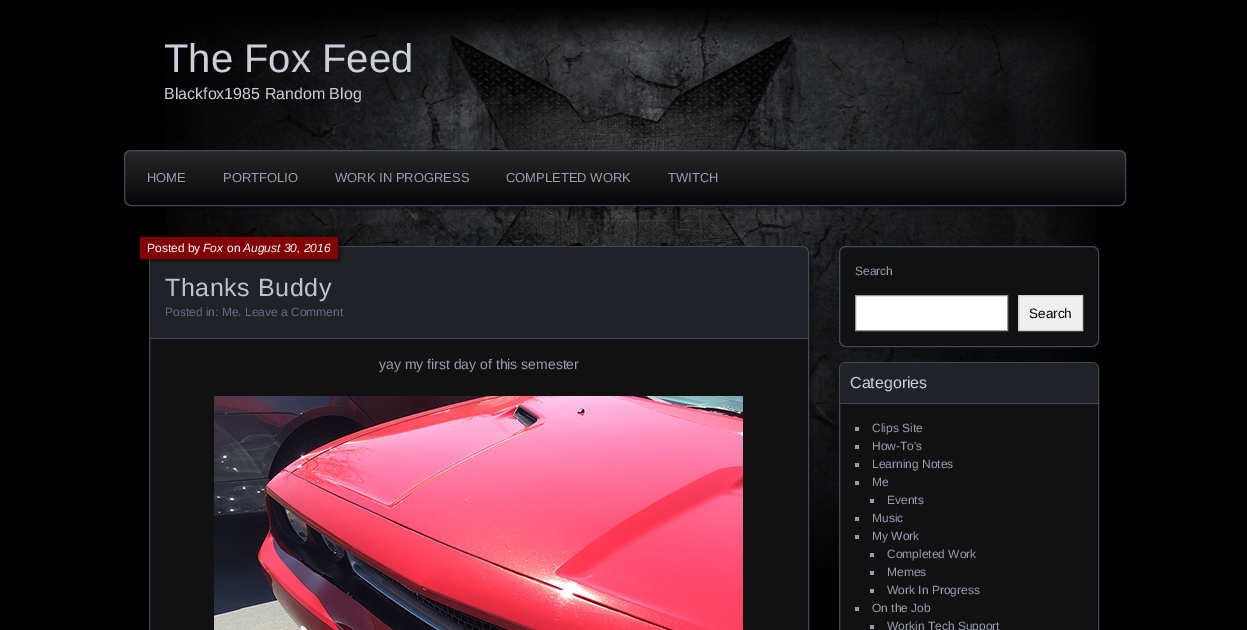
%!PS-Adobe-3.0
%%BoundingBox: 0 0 1247 630
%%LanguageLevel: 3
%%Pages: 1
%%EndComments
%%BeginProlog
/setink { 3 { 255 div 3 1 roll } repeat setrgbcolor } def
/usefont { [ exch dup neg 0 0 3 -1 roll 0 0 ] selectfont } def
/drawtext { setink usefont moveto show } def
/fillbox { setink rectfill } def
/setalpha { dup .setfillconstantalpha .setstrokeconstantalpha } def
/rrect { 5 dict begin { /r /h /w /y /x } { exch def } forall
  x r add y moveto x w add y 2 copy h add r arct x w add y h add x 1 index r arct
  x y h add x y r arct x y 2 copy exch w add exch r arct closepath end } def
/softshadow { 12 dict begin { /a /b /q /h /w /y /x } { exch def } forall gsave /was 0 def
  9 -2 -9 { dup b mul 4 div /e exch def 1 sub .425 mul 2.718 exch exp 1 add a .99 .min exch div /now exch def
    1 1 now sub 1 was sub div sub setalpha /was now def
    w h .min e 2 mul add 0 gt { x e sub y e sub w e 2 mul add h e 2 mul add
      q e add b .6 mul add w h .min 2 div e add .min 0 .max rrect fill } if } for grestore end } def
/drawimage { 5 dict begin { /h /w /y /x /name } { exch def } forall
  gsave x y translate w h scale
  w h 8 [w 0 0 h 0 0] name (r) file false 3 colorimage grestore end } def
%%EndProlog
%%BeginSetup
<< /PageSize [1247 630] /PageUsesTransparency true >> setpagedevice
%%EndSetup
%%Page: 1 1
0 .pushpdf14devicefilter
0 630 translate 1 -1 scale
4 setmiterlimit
0 0 1247 630 0 0 0 fillbox
(assets/img1.rgb) 165 8 931 560 drawimage
(The Fox Feed) 164 72 /LiberationSans-Regular 40 204 207 215 drawtext
(Blackfox1985 Random Blog) 164 99 /LiberationSans-Regular 16 204 207 215 drawtext
0 0 0 setink
127 153 1002 56 7 2 0.45 softshadow
gsave
124 150 1002 56 7 rrect clip newpath
gsave 124 151 moveto 1126 151 lineto 1126 205 lineto 124 205 lineto closepath clip newpath
<< /ShadingType 2 /ColorSpace /DeviceRGB /Coords [625 151 625 205] /Extend [true true] /Function << /FunctionType 3 /Domain [0 1] /Functions [<< /FunctionType 2 /Domain [0 1] /C0 [0.153 0.153 0.153] /C1 [0.153 0.153 0.153] /N 1 >> << /FunctionType 2 /Domain [0 1] /C0 [0.153 0.153 0.153] /C1 [0.027 0.027 0.027] /N 1 >>] /Bounds [0.01] /Encode [0 1 0 1] >> >> shfill grestore
grestore
68 72 85 setink
124.5 150.5 1001 55 6.5 rrect stroke
(HOME) 147 182 /LiberationSans-Regular 13 152 158 174 drawtext
(PORTFOLIO) 223 182 /LiberationSans-Regular 13 152 158 174 drawtext
(WORK IN PROGRESS) 335 182 /LiberationSans-Regular 13 152 158 174 drawtext
(COMPLETED WORK) 506 182 /LiberationSans-Regular 13 152 158 174 drawtext
(TWITCH) 668 182 /LiberationSans-Regular 13 152 158 174 drawtext
0 0 0 setink
152 249 660 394 7 2 0.45 softshadow
17 17 17 setink
149.5 246.5 659 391 6.5 rrect gsave fill grestore
68 72 85 setink
stroke
32 34 40 setink
157 247 moveto 801 247 lineto 805 247 808 250 808 254 curveto 808 339 lineto 150 339 lineto 150 254 lineto 150 250 153 247 157 247 curveto closepath fill
150 338 658 1 68 72 85 fillbox
0 0 0 setink
142 239 198 22 0 2 0.45 softshadow
140 237 198 22 130 3 3 fillbox
(Posted by) 147 252 /LiberationSans-Regular 12 255 255 255 drawtext
(Fox) 203 252 /LiberationSans-Italic 12 255 255 255 drawtext
(on) 227 252 /LiberationSans-Regular 12 255 255 255 drawtext
(August 30, 2016) 243 252 /LiberationSans-Italic 12 255 255 255 drawtext
/LiberationSans-Regular 25 usefont
191 195 207 setink
165 296 moveto 0.6 0 (Thanks Buddy) ashow
(Posted in: Me. Leave a Comment) 165 316 /LiberationSans-Regular 12 102 108 127 drawtext
(yay my first day of this semester) 379 369 /LiberationSans-Regular 14 152 158 174 drawtext
(assets/img2.rgb) 214 396 529 234 drawimage
0 0 0 setink
841 248 260 101 7 2 0.45 softshadow
17 17 17 setink
839.5 246.5 259 100 6.5 rrect gsave fill grestore
68 72 85 setink
stroke
(Search) 855 275 /LiberationSans-Regular 12 152 158 174 drawtext
255 255 255 setink
855.5 295.5 moveto 1007.5 295.5 lineto 1007.5 330.5 lineto 855.5 330.5 lineto closepath gsave fill grestore
148 148 148 setink
stroke
239 239 239 setink
1018.5 295.5 moveto 1082.5 295.5 lineto 1082.5 330.5 lineto 1018.5 330.5 lineto closepath gsave fill grestore
204 204 204 setink
stroke
(Search) 1029 318 /LiberationSans-Regular 13.5 0 0 0 drawtext
17 17 17 setink
839.5 362.5 259 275 6.5 rrect gsave fill grestore
68 72 85 setink
stroke
32 34 40 setink
846 363 moveto 1092 363 lineto 1095.5 363 1098 365.5 1098 369 curveto 1098 404 lineto 840 404 lineto 840 369 lineto 840 365.5 842.5 363 846 363 curveto closepath fill
840 403 258 1 68 72 85 fillbox
(Categories) 850 388 /LiberationSans-Regular 16 204 207 215 drawtext
855 427 4 4 152 158 174 fillbox
(Clips Site) 872 432 /LiberationSans-Regular 12 152 158 174 drawtext
855 445 4 4 152 158 174 fillbox
(How-To's) 872 450 /LiberationSans-Regular 12 152 158 174 drawtext
855 463 4 4 152 158 174 fillbox
(Learning Notes) 872 468 /LiberationSans-Regular 12 152 158 174 drawtext
855 481 4 4 152 158 174 fillbox
(Me) 872 486 /LiberationSans-Regular 12 152 158 174 drawtext
870 499 4 4 152 158 174 fillbox
(Events) 887 504 /LiberationSans-Regular 12 152 158 174 drawtext
855 517 4 4 152 158 174 fillbox
(Music) 872 522 /LiberationSans-Regular 12 152 158 174 drawtext
855 535 4 4 152 158 174 fillbox
(My Work) 872 540 /LiberationSans-Regular 12 152 158 174 drawtext
870 553 4 4 152 158 174 fillbox
(Completed Work) 887 558 /LiberationSans-Regular 12 152 158 174 drawtext
870 571 4 4 152 158 174 fillbox
(Memes) 887 576 /LiberationSans-Regular 12 152 158 174 drawtext
870 589 4 4 152 158 174 fillbox
(Work In Progress) 887 594 /LiberationSans-Regular 12 152 158 174 drawtext
855 607 4 4 152 158 174 fillbox
(On the Job) 872 612 /LiberationSans-Regular 12 152 158 174 drawtext
870 625 4 4 152 158 174 fillbox
(Workin Tech Support) 887 630 /LiberationSans-Regular 12 152 158 174 drawtext
.poppdf14devicefilter showpage
%%EOF
